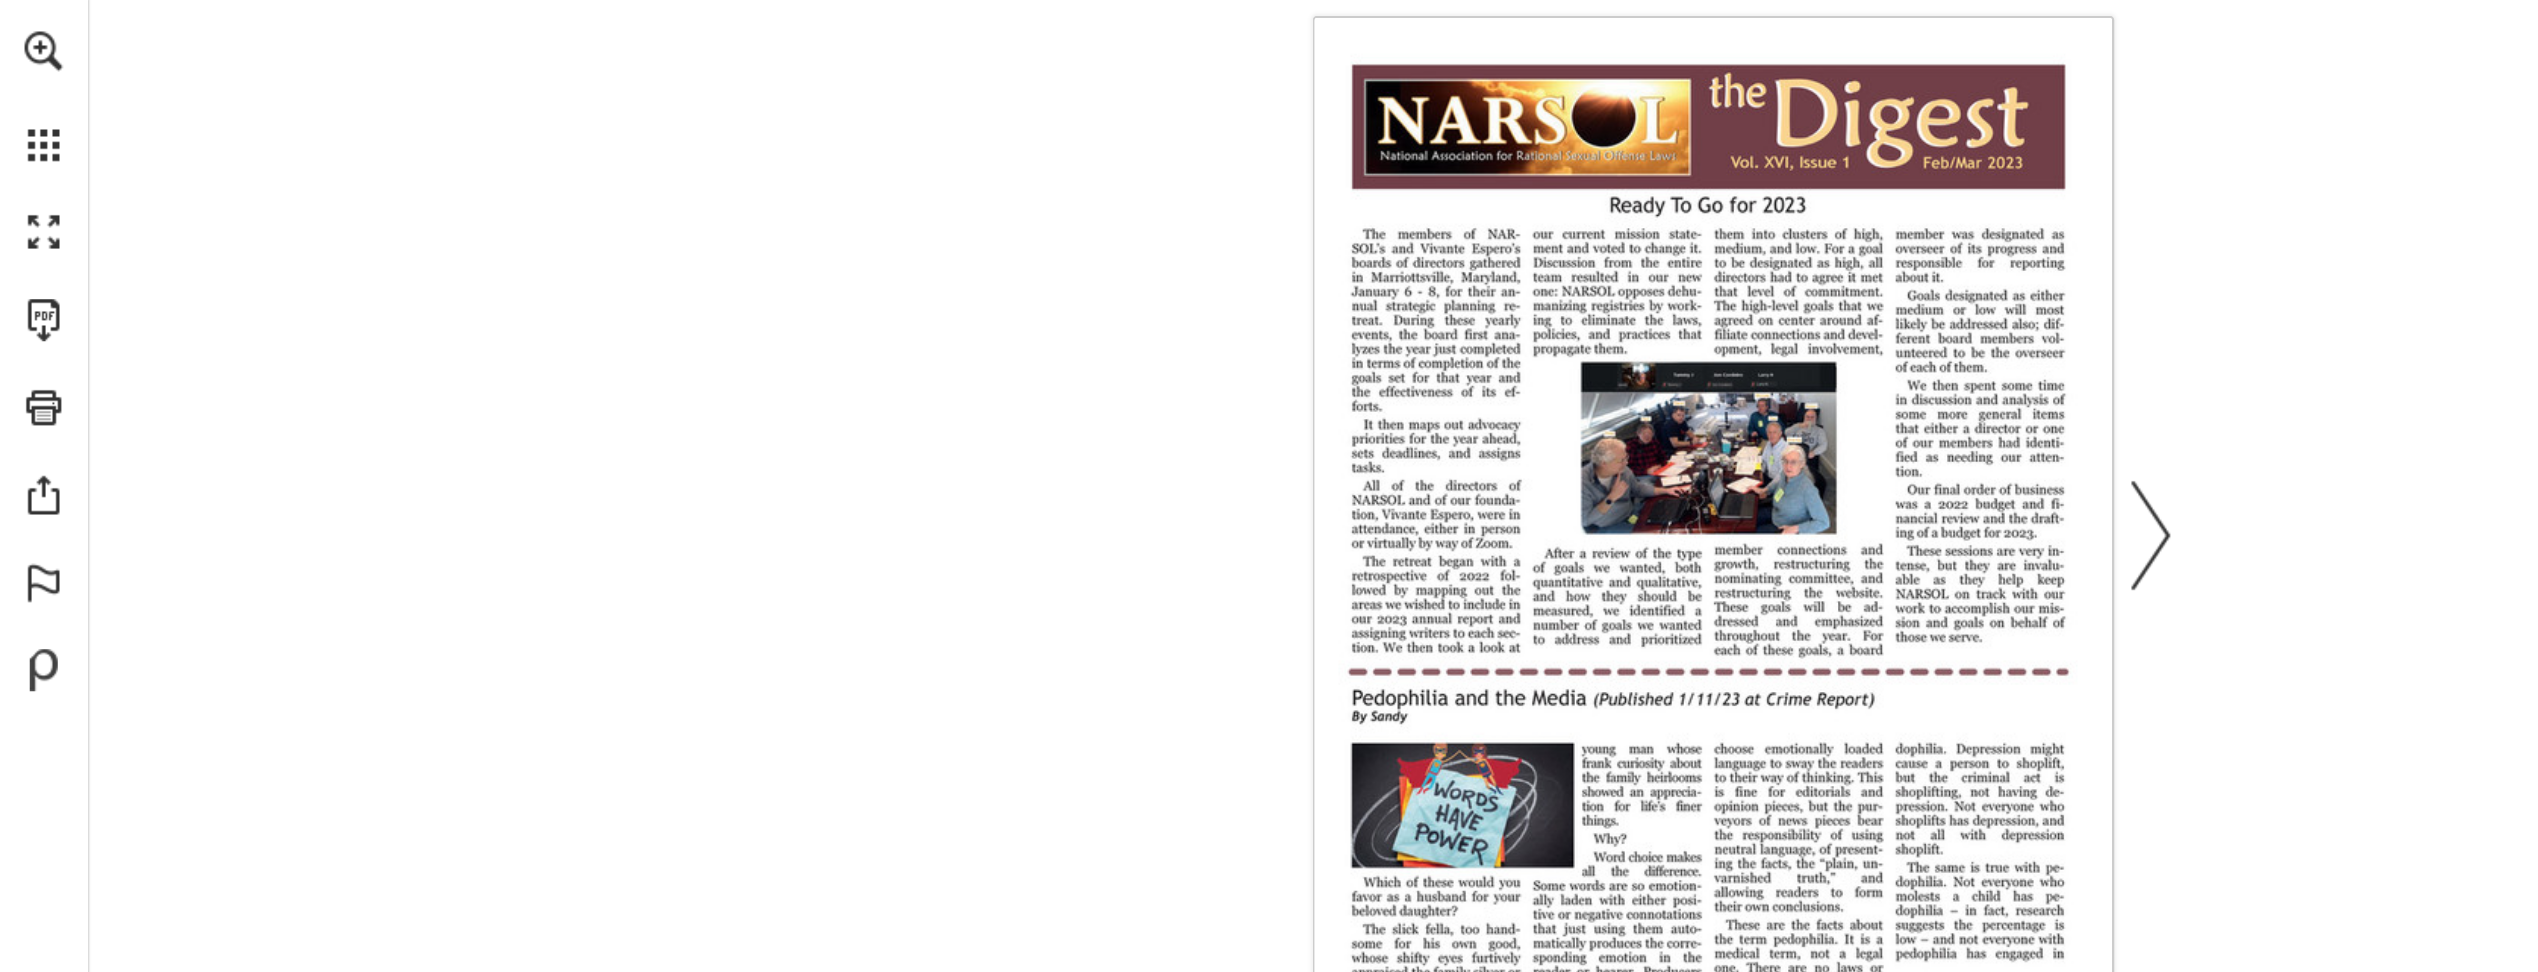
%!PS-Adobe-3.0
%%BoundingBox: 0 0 2538 972
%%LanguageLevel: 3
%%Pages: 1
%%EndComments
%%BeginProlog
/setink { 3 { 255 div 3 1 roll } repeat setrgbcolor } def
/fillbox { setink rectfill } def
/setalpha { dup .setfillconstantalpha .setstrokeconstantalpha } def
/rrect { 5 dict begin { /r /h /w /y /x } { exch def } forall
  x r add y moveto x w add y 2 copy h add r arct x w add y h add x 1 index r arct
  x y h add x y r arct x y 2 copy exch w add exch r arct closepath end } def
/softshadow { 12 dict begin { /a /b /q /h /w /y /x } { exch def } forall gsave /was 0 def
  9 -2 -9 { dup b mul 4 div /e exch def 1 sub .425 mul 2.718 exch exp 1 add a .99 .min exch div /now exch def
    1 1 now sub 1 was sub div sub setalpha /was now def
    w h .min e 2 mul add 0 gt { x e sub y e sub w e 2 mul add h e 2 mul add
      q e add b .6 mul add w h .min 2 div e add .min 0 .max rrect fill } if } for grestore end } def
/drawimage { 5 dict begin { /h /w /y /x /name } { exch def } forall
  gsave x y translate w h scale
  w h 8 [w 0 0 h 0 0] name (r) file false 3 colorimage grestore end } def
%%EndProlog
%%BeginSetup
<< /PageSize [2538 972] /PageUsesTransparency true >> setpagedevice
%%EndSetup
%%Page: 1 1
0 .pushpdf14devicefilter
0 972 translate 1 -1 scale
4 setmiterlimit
0 0 2538 972 255 255 255 fillbox
0 0 0 setink
2 0 87 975 0 1 0.2 softshadow
0 0 88 972 255 255 255 fillbox
(assets/img1.rgb) 24 31 40 41 drawimage
(assets/img2.rgb) 27 129 33 33 drawimage
(assets/img3.rgb) 27 214 33 35 drawimage
(assets/img4.rgb) 27 299 33 43 drawimage
(assets/img5.rgb) 25 389 37 37 drawimage
(assets/img6.rgb) 27 475 33 40 drawimage
(assets/img7.rgb) 27 563 33 40 drawimage
(assets/img8.rgb) 29 649 29 43 drawimage
18 18 18 setink
1311 14 805 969 5 2 0.05 softshadow
204 204 204 setink
2 setlinewidth
1314 17 799 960 3 rrect stroke
(assets/img9.rgb) 1314 18 798 954 drawimage
(assets/img10.rgb) 2131 480 40 111 drawimage
.poppdf14devicefilter showpage
%%EOF
